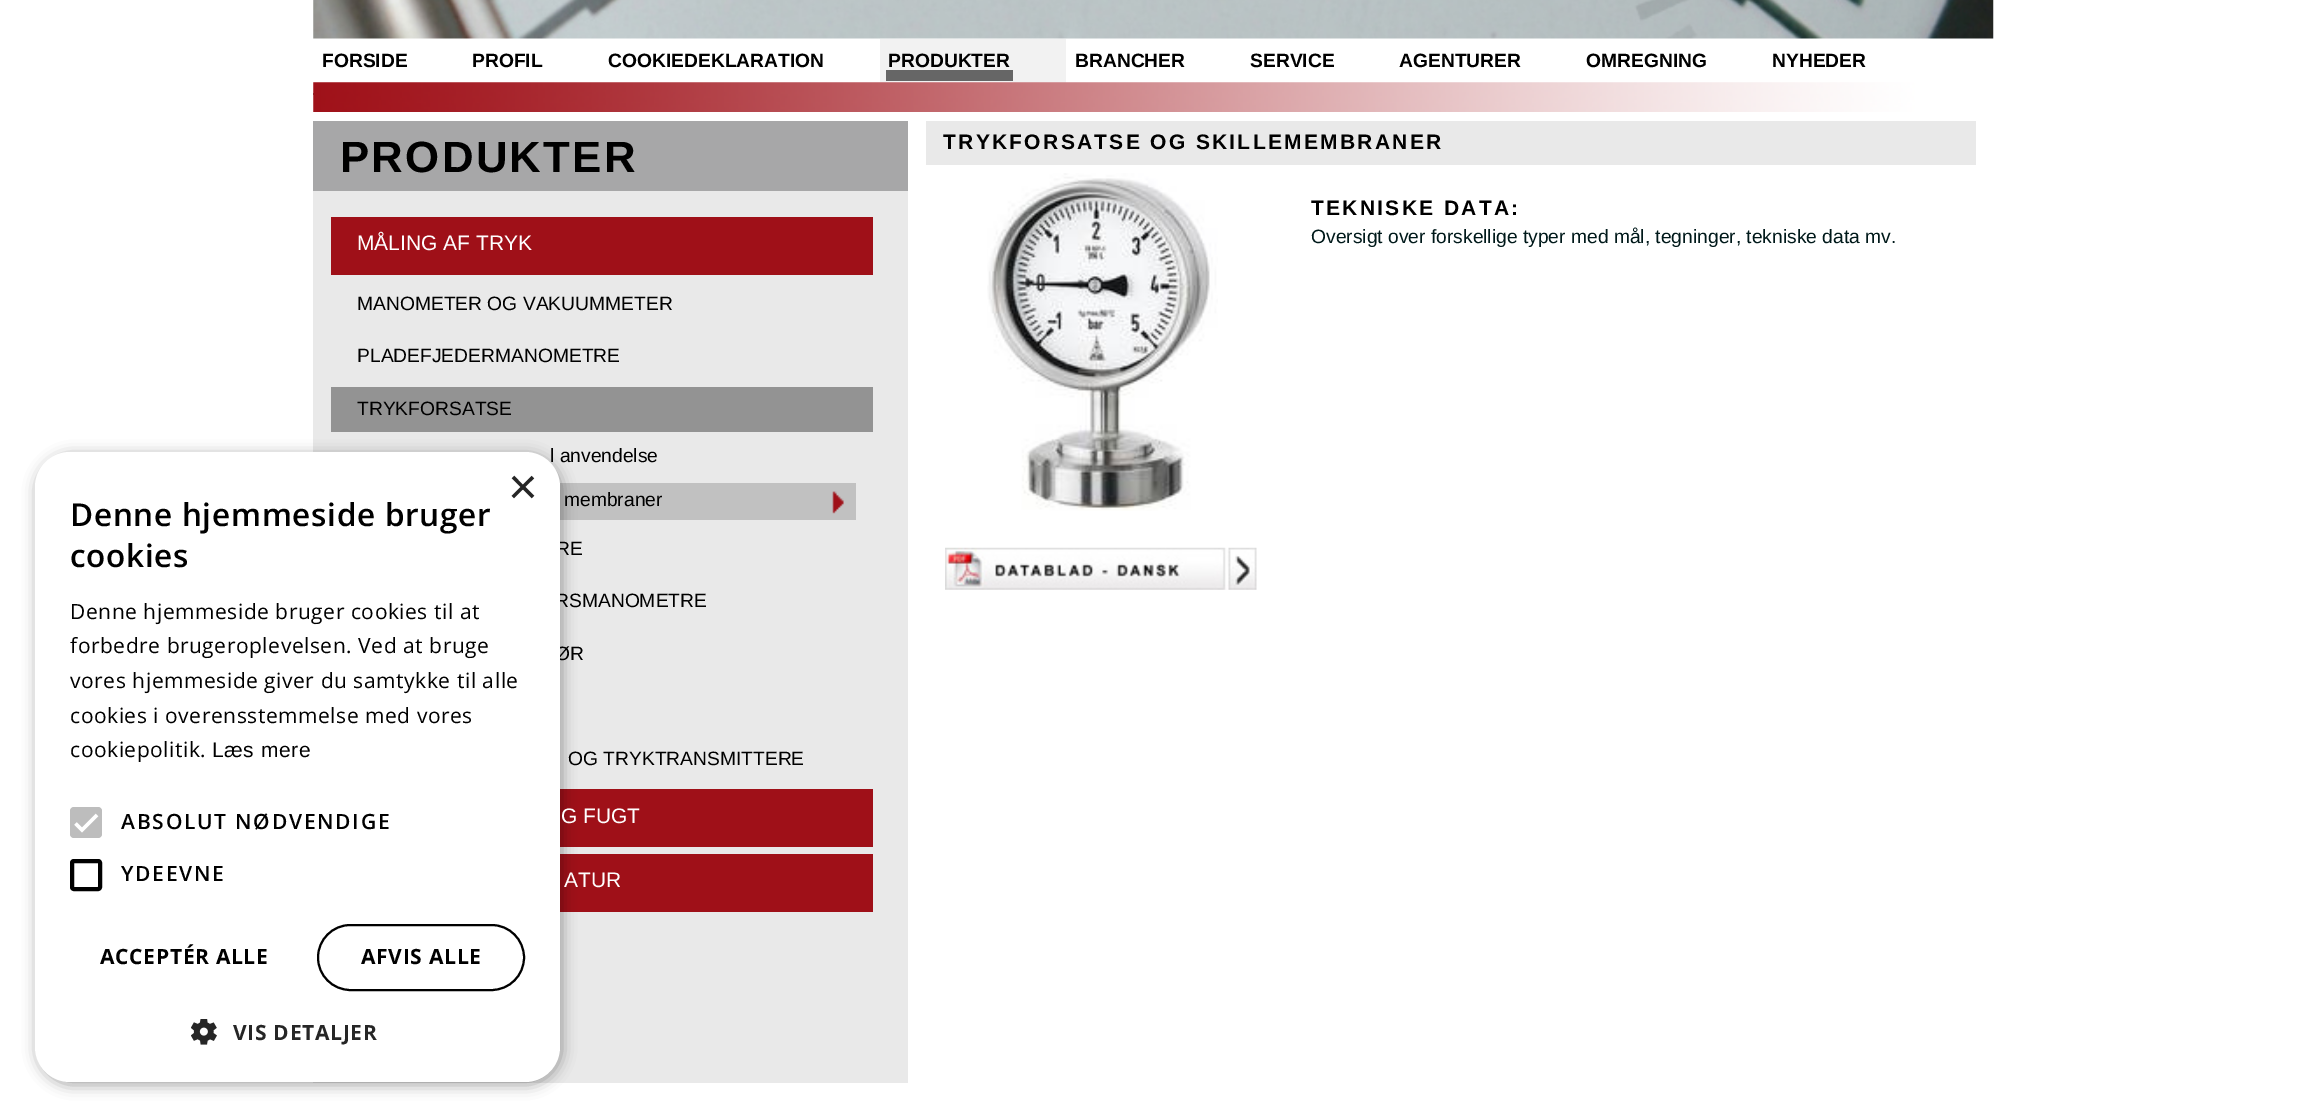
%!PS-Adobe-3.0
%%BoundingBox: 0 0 2306 1116
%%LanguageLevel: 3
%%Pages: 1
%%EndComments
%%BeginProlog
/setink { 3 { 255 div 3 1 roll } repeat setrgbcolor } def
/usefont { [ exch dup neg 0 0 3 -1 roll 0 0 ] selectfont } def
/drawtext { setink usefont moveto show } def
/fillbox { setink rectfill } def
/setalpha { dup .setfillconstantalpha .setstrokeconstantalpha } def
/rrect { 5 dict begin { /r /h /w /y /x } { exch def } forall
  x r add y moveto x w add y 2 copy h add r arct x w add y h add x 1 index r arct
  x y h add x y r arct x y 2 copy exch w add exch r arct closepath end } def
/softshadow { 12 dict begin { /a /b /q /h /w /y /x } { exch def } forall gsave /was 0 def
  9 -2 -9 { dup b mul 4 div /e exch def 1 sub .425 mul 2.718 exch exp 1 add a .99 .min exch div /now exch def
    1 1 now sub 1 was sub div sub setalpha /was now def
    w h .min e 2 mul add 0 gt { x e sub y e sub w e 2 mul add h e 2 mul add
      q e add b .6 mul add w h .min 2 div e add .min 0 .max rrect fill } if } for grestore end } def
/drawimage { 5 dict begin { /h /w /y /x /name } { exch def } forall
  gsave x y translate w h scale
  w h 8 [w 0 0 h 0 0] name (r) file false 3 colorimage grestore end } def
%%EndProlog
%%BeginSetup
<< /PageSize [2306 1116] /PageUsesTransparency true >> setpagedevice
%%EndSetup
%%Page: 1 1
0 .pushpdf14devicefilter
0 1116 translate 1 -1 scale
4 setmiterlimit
0 0 2306 1116 255 255 255 fillbox
313 191 595 892 233 233 233 fillbox
559 483 297 37 193 193 193 fillbox
560 789 313 58 159 16 24 fillbox
560 854 313 58 159 16 24 fillbox
0 0 0 setink
37 455 525 630 35 7 0.35 softshadow
(l anvendelse) 550 462 /LiberationSans-Regular 19.25 0 0 0 drawtext
(RE) 556 555 /LiberationSans-Regular 19.25 0 0 0 drawtext
(RSMANOMETRE) 555 607 /LiberationSans-Regular 19.25 0 0 0 drawtext
(ØR) 555 660 /LiberationSans-Regular 19.25 0 0 0 drawtext
255 255 255 setink
35 452 525 630 35 rrect fill
(×) 508 504 /LiberationSans-Regular 51 38 38 38 drawtext
/OpenSans-SemiBold 31.5 usefont
0 0 0 setink
70 526 moveto 0.7 0 (Denne hjemmeside bruger) ashow
70 567 moveto 0.7 0 (cookies) ashow
/OpenSans-Regular 21 usefont
70 619 moveto 0.55 0 (Denne hjemmeside bruger cookies til at) ashow
70 653 moveto 0.55 0 (forbedre brugeroplevelsen. Ved at bruge) ashow
70 688 moveto 0.55 0 (vores hjemmeside giver du samtykke til alle) ashow
70 723 moveto 0.55 0 (cookies i overensstemmelse med vores) ashow
70 757 moveto 0.55 0 (cookiepolitik.) ashow
/LiberationSans-Regular 21 usefont
212 757 moveto 0.55 0 (Læs mere) ashow
189 189 189 setink
70 807 32 31 4 rrect fill
255 255 255 setink
3.2 setlinewidth
75.5 823.5 moveto 82 830 lineto 97 815 lineto stroke
/OpenSans-SemiBold 21 usefont
0 0 0 setink
121 829 moveto 1.75 0 (ABSOLUT NØDVENDIGE) ashow
4 setlinewidth
72 861 28 28 2 rrect stroke
121 881 moveto 1.75 0 (YDEEVNE) ashow
/OpenSans-Bold 21 usefont
100 964 moveto 0.7 0 (ACCEPTÉR ALLE) ashow
2 setlinewidth
318 925 206 65 32.5 rrect stroke
361 964 moveto 0.7 0 (AFVIS ALLE) ashow
(assets/img1.rgb) 191 1019 26 26 drawimage
38 38 38 setink
233 1040 moveto 0.7 0 (VIS DETALJER) ashow
(assets/img2.rgb) 313 0 1681 39 drawimage
(FORSIDE) 322 67 /LiberationSans-Bold 19.25 0 0 0 drawtext
(PROFIL) 472 67 /LiberationSans-Bold 19.25 0 0 0 drawtext
(COOKIEDEKLARATION) 608 67 /LiberationSans-Bold 19.25 0 0 0 drawtext
880 39 186 44 242 242 242 fillbox
(PRODUKTER) 888 67 /LiberationSans-Bold 19.25 0 0 0 drawtext
886 70 127 11 102 102 102 fillbox
(BRANCHER) 1075 67 /LiberationSans-Bold 19.25 0 0 0 drawtext
(SERVICE) 1250 67 /LiberationSans-Bold 19.25 0 0 0 drawtext
(AGENTURER) 1399 67 /LiberationSans-Bold 19.25 0 0 0 drawtext
(OMREGNING) 1586 67 /LiberationSans-Bold 19.25 0 0 0 drawtext
(NYHEDER) 1772 67 /LiberationSans-Bold 19.25 0 0 0 drawtext
(assets/img3.rgb) 313 82 1609 30 drawimage
313 121 595 70 167 167 168 fillbox
/LiberationSans-Bold 43.75 usefont
0 0 0 setink
340 172 moveto 2.3 0 (PRODUKTER) ashow
331 217 542 58 159 16 24 fillbox
(MÅLING AF TRYK) 357 250 /LiberationSans-Regular 21 255 255 255 drawtext
(MANOMETER OG VAKUUMMETER) 357 310 /LiberationSans-Regular 19.25 0 0 0 drawtext
(PLADEFJEDERMANOMETRE) 357 362 /LiberationSans-Regular 19.25 0 0 0 drawtext
331 387 542 45 147 147 147 fillbox
(TRYKFORSATSE) 357 415 /LiberationSans-Regular 19.25 0 0 0 drawtext
(assets/img4.rgb) 832 491 12 23 drawimage
(membraner) 564 506 /LiberationSans-Regular 19.25 0 0 0 drawtext
(OG TRYKTRANSMITTERE) 568 765 /LiberationSans-Regular 19.25 0 0 0 drawtext
(G FUGT) 561 823 /LiberationSans-Regular 21 255 255 255 drawtext
(ATUR) 564 887 /LiberationSans-Regular 21 255 255 255 drawtext
926 121 1050 44 233 233 233 fillbox
/LiberationSans-Bold 21 usefont
0 0 0 setink
943 149 moveto 2.3 0 (TRYKFORSATSE OG SKILLEMEMBRANER) ashow
(assets/img5.rgb) 987 173 231 338 drawimage
(assets/img6.rgb) 945 547 312 43 drawimage
1311 215 moveto 2.3 0 (TEKNISKE DATA:) ashow
(Oversigt over forskellige typer med mål, tegninger, tekniske data mv.) 1311 243 /LiberationSans-Regular 19.25 0 25 26 drawtext
.poppdf14devicefilter showpage
%%EOF
